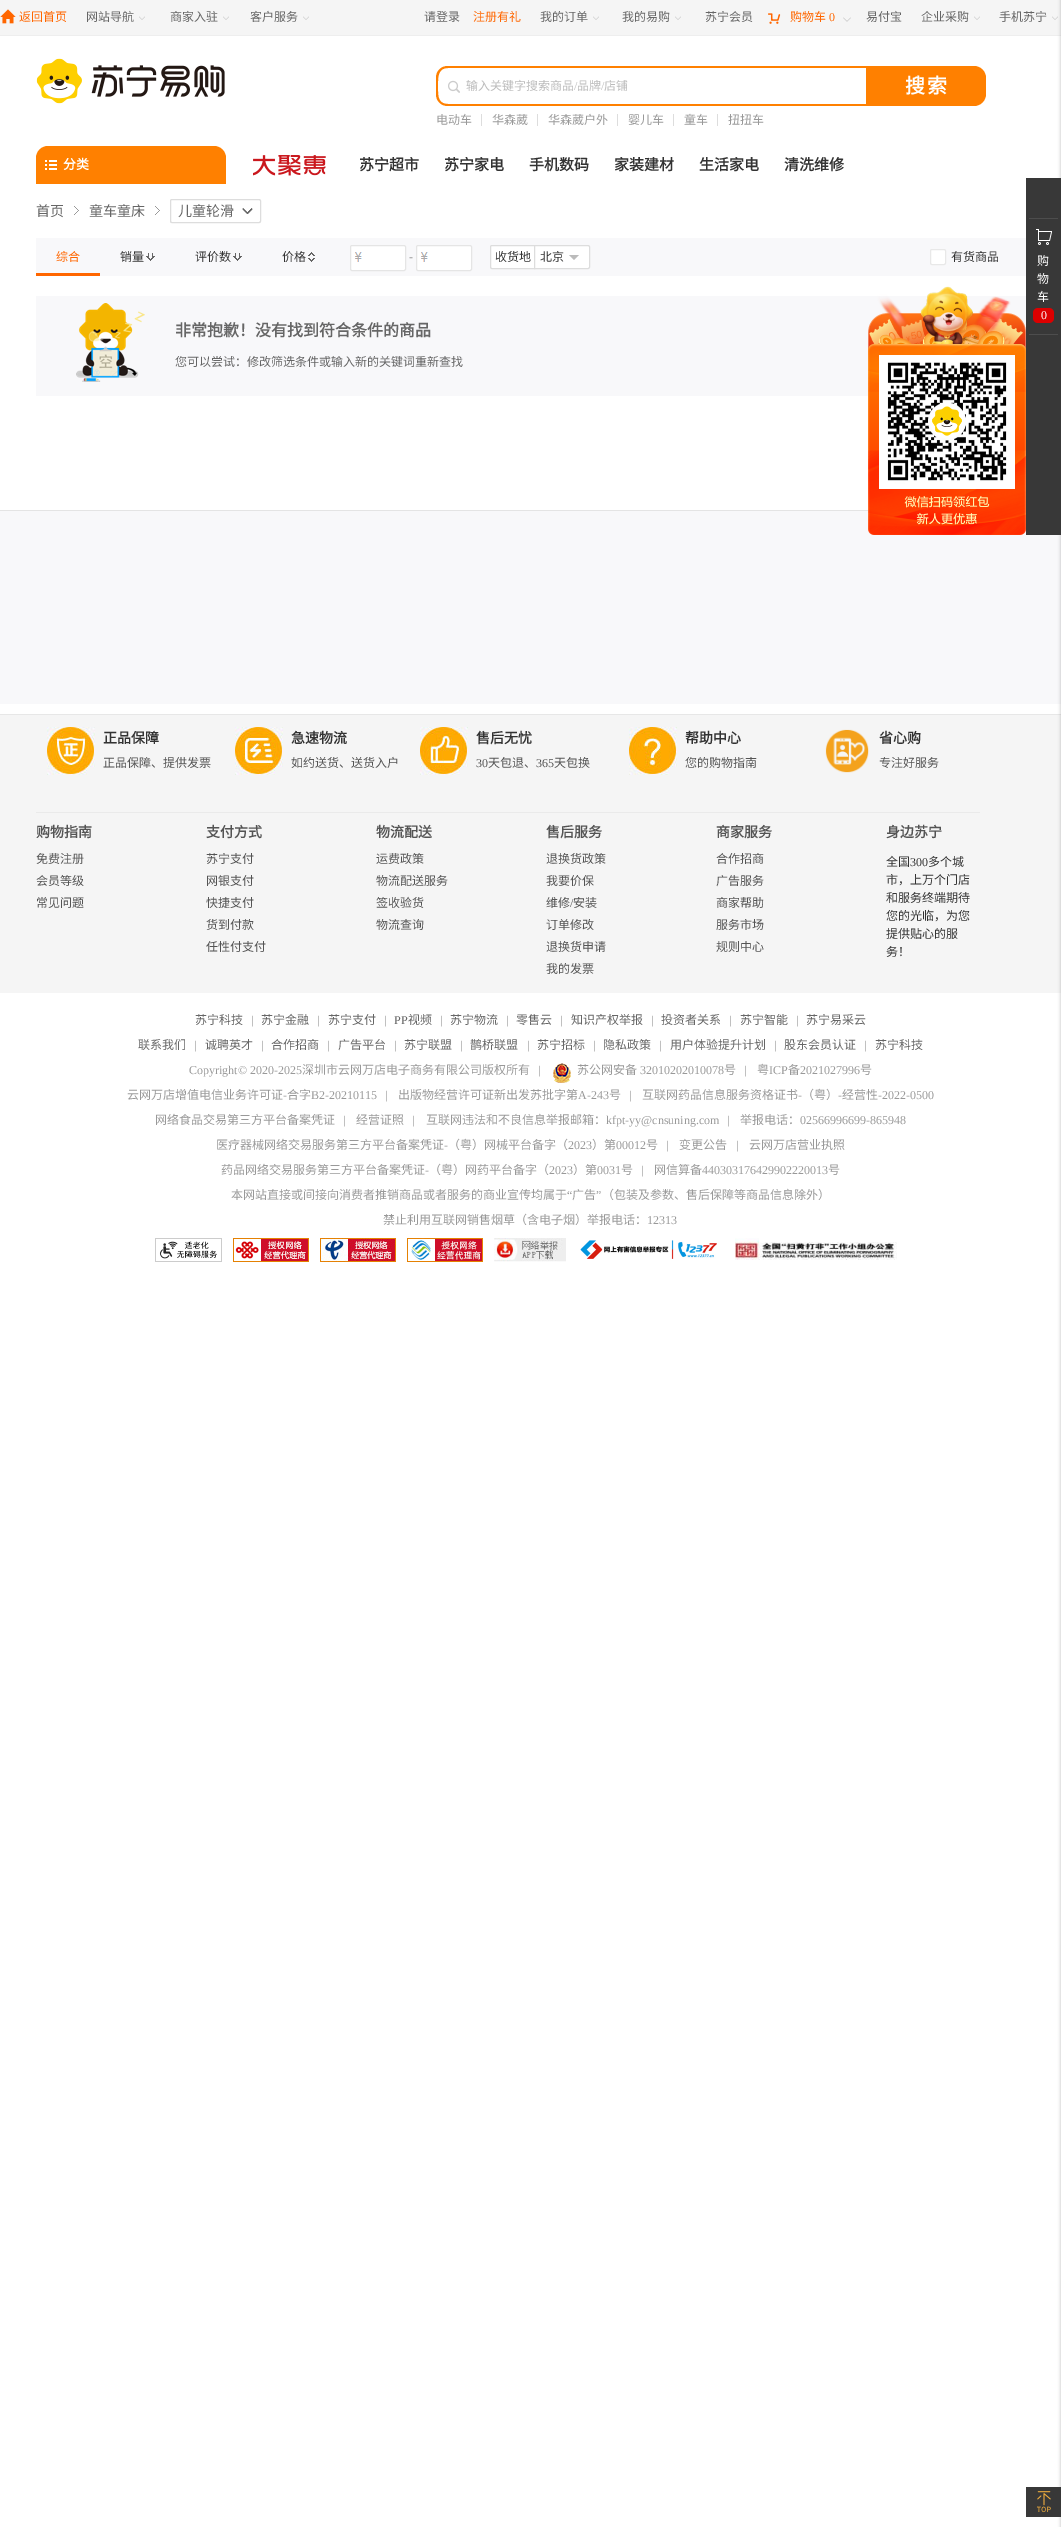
%!PS-Adobe-3.0
%%BoundingBox: 0 0 1061 2527
%%LanguageLevel: 3
%%Pages: 1
%%EndComments
%%BeginProlog
/setink { 3 { 255 div 3 1 roll } repeat setrgbcolor } def
/usefont { [ exch dup neg 0 0 3 -1 roll 0 0 ] selectfont } def
/drawtext { setink usefont moveto show } def
/fillbox { setink rectfill } def
/setalpha { dup .setfillconstantalpha .setstrokeconstantalpha } def
/rrect { 5 dict begin { /r /h /w /y /x } { exch def } forall
  x r add y moveto x w add y 2 copy h add r arct x w add y h add x 1 index r arct
  x y h add x y r arct x y 2 copy exch w add exch r arct closepath end } def
/softshadow { 12 dict begin { /a /b /q /h /w /y /x } { exch def } forall gsave /was 0 def
  9 -2 -9 { dup b mul 4 div /e exch def 1 sub .425 mul 2.718 exch exp 1 add a .99 .min exch div /now exch def
    1 1 now sub 1 was sub div sub setalpha /was now def
    w h .min e 2 mul add 0 gt { x e sub y e sub w e 2 mul add h e 2 mul add
      q e add b .6 mul add w h .min 2 div e add .min 0 .max rrect fill } if } for grestore end } def
/drawimage { 5 dict begin { /h /w /y /x /name } { exch def } forall
  gsave x y translate w h scale
  w h 8 [w 0 0 h 0 0] name (r) file false 3 colorimage grestore end } def
%%EndProlog
%%BeginSetup
<< /PageSize [1061 2527] /PageUsesTransparency true >> setpagedevice
%%EndSetup
%%Page: 1 1
0 .pushpdf14devicefilter
0 2527 translate 1 -1 scale
4 setmiterlimit
0 0 1061 2527 255 255 255 fillbox
0 0 1061 35 245 245 245 fillbox
0 35 1061 1 238 238 238 fillbox
(assets/img1.rgb) 0 9 16 15 drawimage
(返回首页) 19 21 /NotoSansCJKSC-Regular 12 255 102 0 drawtext
(网站导航) 86 21 /NotoSansCJKSC-Regular 12 102 102 102 drawtext
(assets/img2.rgb) 139 16 6 4 drawimage
(商家入驻) 170 21 /NotoSansCJKSC-Regular 12 102 102 102 drawtext
(assets/img2.rgb) 223 16 6 4 drawimage
(客户服务) 250 21 /NotoSansCJKSC-Regular 12 102 102 102 drawtext
(assets/img2.rgb) 303 16 6 4 drawimage
(请登录) 424 21 /NotoSansCJKSC-Regular 12 102 102 102 drawtext
(注册有礼) 473 21 /NotoSansCJKSC-Regular 12 255 102 0 drawtext
(我的订单) 540 21 /NotoSansCJKSC-Regular 12 102 102 102 drawtext
(assets/img2.rgb) 593 16 6 4 drawimage
(我的易购) 622 21 /NotoSansCJKSC-Regular 12 102 102 102 drawtext
(assets/img2.rgb) 675 16 6 4 drawimage
(苏宁会员) 705 21 /NotoSansCJKSC-Regular 12 102 102 102 drawtext
(assets/img3.rgb) 768 13 13 11 drawimage
(购物车) 790 21 /NotoSansCJKSC-Regular 12 255 102 0 drawtext
(0) 829 21 /LiberationSerif-Regular 12 255 102 0 drawtext
(assets/img4.rgb) 843 17 8 5 drawimage
(易付宝) 866 21 /NotoSansCJKSC-Regular 12 102 102 102 drawtext
(企业采购) 921 21 /NotoSansCJKSC-Regular 12 102 102 102 drawtext
(assets/img2.rgb) 974 16 6 4 drawimage
(手机苏宁) 999 21 /NotoSansCJKSC-Regular 12 102 102 102 drawtext
(assets/img2.rgb) 1052 16 6 4 drawimage
(assets/img5.rgb) 36 58 189 46 drawimage
(assets/img6.rgb) 448 80 12 13 drawimage
255 128 0 setink
448 66 moveto 866 66 lineto 866 106 lineto 448 106 lineto 441 106 436 101 436 94 curveto 436 78 lineto 436 71 441 66 448 66 curveto closepath 448 68 moveto 866 68 lineto 866 104 lineto 448 104 lineto 437 104 438 94 438 86 curveto 438 79 437 68 448 68 curveto closepath eofill
(输入关键字搜索商品) 466 90 /NotoSansCJKSC-Regular 12 187 187 187 drawtext
(/) 574 90 /LiberationSerif-Regular 12 187 187 187 drawtext
(品牌) 577 90 /NotoSansCJKSC-Regular 12 187 187 187 drawtext
(/) 601 90 /LiberationSerif-Regular 12 187 187 187 drawtext
(店铺) 604 90 /NotoSansCJKSC-Regular 12 187 187 187 drawtext
255 128 0 setink
866 66 moveto 974 66 lineto 980.5 66 986 71.5 986 78 curveto 986 94 lineto 986 100.5 980.5 106 974 106 curveto 866 106 lineto closepath fill
/NotoSansCJKSC-Bold 20 usefont
255 255 255 setink
905 93 moveto 2 0 (搜索) ashow
(电动车) 436 124 /NotoSansCJKSC-Regular 12 153 153 153 drawtext
481 114 1 12 221 221 221 fillbox
(华森葳) 492 124 /NotoSansCJKSC-Regular 12 153 153 153 drawtext
537 114 1 12 221 221 221 fillbox
(华森葳户外) 548 124 /NotoSansCJKSC-Regular 12 153 153 153 drawtext
617 114 1 12 221 221 221 fillbox
(婴儿车) 628 124 /NotoSansCJKSC-Regular 12 153 153 153 drawtext
673 114 1 12 221 221 221 fillbox
(童车) 684 124 /NotoSansCJKSC-Regular 12 153 153 153 drawtext
717 114 1 12 221 221 221 fillbox
(扭扭车) 728 124 /NotoSansCJKSC-Regular 12 153 153 153 drawtext
255 128 0 setink
48 146 moveto 214 146 lineto 220.5 146 226 151.5 226 158 curveto 226 184 lineto 36 184 lineto 36 158 lineto 36 151.5 41.5 146 48 146 curveto closepath fill
(assets/img7.rgb) 45 160 12 10 drawimage
(分类) 63 169 /NotoSansCJKSC-Bold 13 255 255 255 drawtext
(assets/img8.rgb) 253 155 73 21 drawimage
(苏宁超市) 359 170 /NotoSansCJKSC-Bold 15 51 51 51 drawtext
(苏宁家电) 444 170 /NotoSansCJKSC-Bold 15 51 51 51 drawtext
(手机数码) 529 170 /NotoSansCJKSC-Bold 15 51 51 51 drawtext
(家装建材) 614 170 /NotoSansCJKSC-Bold 15 51 51 51 drawtext
(生活家电) 699 170 /NotoSansCJKSC-Bold 15 51 51 51 drawtext
(清洗维修) 784 170 /NotoSansCJKSC-Bold 15 51 51 51 drawtext
(首页) 36 216 /NotoSansCJKSC-Regular 14 102 102 102 drawtext
(assets/img9.rgb) 74 206 5 9 drawimage
(童车童床) 89 216 /NotoSansCJKSC-Regular 14 102 102 102 drawtext
(assets/img9.rgb) 155 206 5 9 drawimage
221 221 221 setink
170.5 199.5 90 23 1.5 rrect stroke
(儿童轮滑) 178 216 /NotoSansCJKSC-Regular 14 102 102 102 drawtext
(assets/img10.rgb) 242 208 11 6 drawimage
221 221 221 setink
261 222 moveto 170 222 lineto 172 223 lineto 259 223 lineto closepath fill
36 238 990 38 248 248 250 fillbox
(综合) 56 261 /NotoSansCJKSC-Regular 12 255 102 0 drawtext
(销量) 120 261 /NotoSansCJKSC-Regular 12 51 51 51 drawtext
(assets/img11.rgb) 146 253 9 8 drawimage
(评价数) 195 261 /NotoSansCJKSC-Regular 12 51 51 51 drawtext
(assets/img11.rgb) 233 253 9 8 drawimage
(价格) 282 261 /NotoSansCJKSC-Regular 12 51 51 51 drawtext
(assets/img12.rgb) 308 252 7 10 drawimage
36 273 64 3 255 102 0 fillbox
255 255 255 setink
350 245 56 26 2 rrect fill
(assets/img13.rgb) 355 252 7 10 drawimage
229 229 229 setink
350.5 245.5 55 25 1.5 rrect stroke
(-) 409 261 /LiberationSans-Regular 12 153 153 153 drawtext
255 255 255 setink
416 245 56 26 2 rrect fill
(assets/img13.rgb) 421 252 7 10 drawimage
229 229 229 setink
416.5 245.5 55 25 1.5 rrect stroke
255 255 255 setink
492 245.5 moveto 534.5 245.5 lineto 534.5 268.5 lineto 492 268.5 lineto 491 268.5 490.5 268 490.5 267 curveto 490.5 247 lineto 490.5 246 491 245.5 492 245.5 curveto closepath gsave fill grestore
221 221 221 setink
stroke
(收货地) 495 261 /NotoSansCJKSC-Regular 12 51 51 51 drawtext
255 255 255 setink
534.5 245.5 moveto 588 245.5 lineto 589 245.5 589.5 246 589.5 247 curveto 589.5 267 lineto 589.5 268 589 268.5 588 268.5 curveto 534.5 268.5 lineto closepath gsave fill grestore
221 221 221 setink
stroke
(北京) 540 261 /NotoSansCJKSC-Regular 12 51 51 51 drawtext
187 187 187 setink
569 255 moveto 579 255 lineto 574 260 lineto closepath fill
255 255 255 setink
930.5 249.5 15 15 1.5 rrect gsave fill grestore
232 232 232 setink
stroke
(有货商品) 951 261 /NotoSansCJKSC-Regular 12 51 51 51 drawtext
0 511 1061 193 248 248 250 fillbox
0 715 1061 278 245 245 245 fillbox
0 714 1061 1 231 231 231 fillbox
136 136 136 setink
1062 0 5 2527 0 2 1 softshadow
1026 178 35 357 56 56 56 fillbox
36 296 990 100 248 248 250 fillbox
(assets/img14.rgb) 868 286 158 249 drawimage
1029 218 29 1 77 77 77 fillbox
1029 334 29 1 77 77 77 fillbox
(assets/img15.rgb) 1036 229 16 16 drawimage
(购) 1037 265 /NotoSansCJKSC-Regular 12 255 255 255 drawtext
(物) 1037 283 /NotoSansCJKSC-Regular 12 255 255 255 drawtext
(车) 1037 301 /NotoSansCJKSC-Regular 12 255 255 255 drawtext
221 0 0 setink
1033 308 21 15 5 rrect fill
(0) 1041 319 /LiberationSerif-Regular 12 255 255 255 drawtext
1026 2487 35 30 56 56 56 fillbox
(assets/img16.rgb) 1037 2491 14 22 drawimage
(assets/img17.rgb) 76 303 69 79 drawimage
(非常抱歉！没有找到符合条件的商品) 175 336 /NotoSansCJKSC-Bold 16 102 102 102 drawtext
(您可以尝试：修改筛选条件或输入新的关键词重新查找) 175 366 /NotoSansCJKSC-Regular 12 102 102 102 drawtext
0 510 868 1 228 228 228 fillbox
36 812 944 1 234 234 234 fillbox
(assets/img18.rgb) 47 727 48 48 drawimage
(正品保障) 103 743 /NotoSansCJKSC-Bold 14 51 51 51 drawtext
(正品保障、提供发票) 103 767 /NotoSansCJKSC-Regular 12 84 84 84 drawtext
(assets/img19.rgb) 235 727 48 48 drawimage
(急速物流) 291 743 /NotoSansCJKSC-Bold 14 51 51 51 drawtext
(如约送货、送货入户) 291 767 /NotoSansCJKSC-Regular 12 84 84 84 drawtext
(assets/img20.rgb) 420 727 48 48 drawimage
(售后无忧) 476 743 /NotoSansCJKSC-Bold 14 51 51 51 drawtext
(30) 476 767 /LiberationSerif-Regular 12 84 84 84 drawtext
(天包退、) 488 767 /NotoSansCJKSC-Regular 12 84 84 84 drawtext
(365) 536 767 /LiberationSerif-Regular 12 84 84 84 drawtext
(天包换) 554 767 /NotoSansCJKSC-Regular 12 84 84 84 drawtext
(assets/img21.rgb) 629 727 48 48 drawimage
(帮助中心) 685 743 /NotoSansCJKSC-Bold 14 51 51 51 drawtext
(您的购物指南) 685 767 /NotoSansCJKSC-Regular 12 84 84 84 drawtext
(assets/img22.rgb) 825 729 44 44 drawimage
(省心购) 879 743 /NotoSansCJKSC-Bold 14 51 51 51 drawtext
(专注好服务) 879 767 /NotoSansCJKSC-Regular 12 84 84 84 drawtext
(购物指南) 36 837 /NotoSansCJKSC-Bold 14 84 84 84 drawtext
(免费注册) 36 863 /NotoSansCJKSC-Regular 12 84 84 84 drawtext
(会员等级) 36 885 /NotoSansCJKSC-Regular 12 84 84 84 drawtext
(常见问题) 36 907 /NotoSansCJKSC-Regular 12 84 84 84 drawtext
(支付方式) 206 837 /NotoSansCJKSC-Bold 14 84 84 84 drawtext
(苏宁支付) 206 863 /NotoSansCJKSC-Regular 12 84 84 84 drawtext
(网银支付) 206 885 /NotoSansCJKSC-Regular 12 84 84 84 drawtext
(快捷支付) 206 907 /NotoSansCJKSC-Regular 12 84 84 84 drawtext
(货到付款) 206 929 /NotoSansCJKSC-Regular 12 84 84 84 drawtext
(任性付支付) 206 951 /NotoSansCJKSC-Regular 12 84 84 84 drawtext
(物流配送) 376 837 /NotoSansCJKSC-Bold 14 84 84 84 drawtext
(运费政策) 376 863 /NotoSansCJKSC-Regular 12 84 84 84 drawtext
(物流配送服务) 376 885 /NotoSansCJKSC-Regular 12 84 84 84 drawtext
(签收验货) 376 907 /NotoSansCJKSC-Regular 12 84 84 84 drawtext
(物流查询) 376 929 /NotoSansCJKSC-Regular 12 84 84 84 drawtext
(售后服务) 546 837 /NotoSansCJKSC-Bold 14 84 84 84 drawtext
(退换货政策) 546 863 /NotoSansCJKSC-Regular 12 84 84 84 drawtext
(我要价保) 546 885 /NotoSansCJKSC-Regular 12 84 84 84 drawtext
(维修) 546 907 /NotoSansCJKSC-Regular 12 84 84 84 drawtext
(/) 570 907 /LiberationSerif-Regular 12 84 84 84 drawtext
(安装) 573 907 /NotoSansCJKSC-Regular 12 84 84 84 drawtext
(订单修改) 546 929 /NotoSansCJKSC-Regular 12 84 84 84 drawtext
(退换货申请) 546 951 /NotoSansCJKSC-Regular 12 84 84 84 drawtext
(我的发票) 546 973 /NotoSansCJKSC-Regular 12 84 84 84 drawtext
(商家服务) 716 837 /NotoSansCJKSC-Bold 14 84 84 84 drawtext
(合作招商) 716 863 /NotoSansCJKSC-Regular 12 84 84 84 drawtext
(广告服务) 716 885 /NotoSansCJKSC-Regular 12 84 84 84 drawtext
(商家帮助) 716 907 /NotoSansCJKSC-Regular 12 84 84 84 drawtext
(服务市场) 716 929 /NotoSansCJKSC-Regular 12 84 84 84 drawtext
(规则中心) 716 951 /NotoSansCJKSC-Regular 12 84 84 84 drawtext
(身边苏宁) 886 837 /NotoSansCJKSC-Bold 14 84 84 84 drawtext
(全国) 886 866 /NotoSansCJKSC-Regular 12 51 51 51 drawtext
(300) 910 866 /LiberationSerif-Regular 12 51 51 51 drawtext
(多个城) 928 866 /NotoSansCJKSC-Regular 12 51 51 51 drawtext
(市，上万个门店) 886 884 /NotoSansCJKSC-Regular 12 51 51 51 drawtext
(和服务终端期待) 886 902 /NotoSansCJKSC-Regular 12 51 51 51 drawtext
(您的光临，为您) 886 920 /NotoSansCJKSC-Regular 12 51 51 51 drawtext
(提供贴心的服) 886 938 /NotoSansCJKSC-Regular 12 51 51 51 drawtext
(务！) 886 956 /NotoSansCJKSC-Regular 12 51 51 51 drawtext
(苏宁科技) 195 1024 /NotoSansCJKSC-Regular 12 102 102 102 drawtext
(|) 251 1024 /LiberationSerif-Regular 12 136 136 136 drawtext
(苏宁金融) 261 1024 /NotoSansCJKSC-Regular 12 102 102 102 drawtext
(|) 317 1024 /LiberationSerif-Regular 12 136 136 136 drawtext
(苏宁支付) 328 1024 /NotoSansCJKSC-Regular 12 102 102 102 drawtext
(|) 384 1024 /LiberationSerif-Regular 12 136 136 136 drawtext
(PP) 394 1024 /LiberationSerif-Regular 12 102 102 102 drawtext
(视频) 408 1024 /NotoSansCJKSC-Regular 12 102 102 102 drawtext
(|) 440 1024 /LiberationSerif-Regular 12 136 136 136 drawtext
(苏宁物流) 450 1024 /NotoSansCJKSC-Regular 12 102 102 102 drawtext
(|) 506 1024 /LiberationSerif-Regular 12 136 136 136 drawtext
(零售云) 516 1024 /NotoSansCJKSC-Regular 12 102 102 102 drawtext
(|) 560 1024 /LiberationSerif-Regular 12 136 136 136 drawtext
(知识产权举报) 571 1024 /NotoSansCJKSC-Regular 12 102 102 102 drawtext
(|) 651 1024 /LiberationSerif-Regular 12 136 136 136 drawtext
(投资者关系) 661 1024 /NotoSansCJKSC-Regular 12 102 102 102 drawtext
(|) 729 1024 /LiberationSerif-Regular 12 136 136 136 drawtext
(苏宁智能) 740 1024 /NotoSansCJKSC-Regular 12 102 102 102 drawtext
(|) 796 1024 /LiberationSerif-Regular 12 136 136 136 drawtext
(苏宁易采云) 806 1024 /NotoSansCJKSC-Regular 12 102 102 102 drawtext
(联系我们) 138 1049 /NotoSansCJKSC-Regular 12 102 102 102 drawtext
(|) 194 1049 /LiberationSerif-Regular 12 136 136 136 drawtext
(诚聘英才) 205 1049 /NotoSansCJKSC-Regular 12 102 102 102 drawtext
(|) 261 1049 /LiberationSerif-Regular 12 136 136 136 drawtext
(合作招商) 271 1049 /NotoSansCJKSC-Regular 12 102 102 102 drawtext
(|) 327 1049 /LiberationSerif-Regular 12 136 136 136 drawtext
(广告平台) 338 1049 /NotoSansCJKSC-Regular 12 102 102 102 drawtext
(|) 394 1049 /LiberationSerif-Regular 12 136 136 136 drawtext
(苏宁联盟) 404 1049 /NotoSansCJKSC-Regular 12 102 102 102 drawtext
(|) 460 1049 /LiberationSerif-Regular 12 136 136 136 drawtext
(鹊桥联盟) 470 1049 /NotoSansCJKSC-Regular 12 102 102 102 drawtext
(|) 527 1049 /LiberationSerif-Regular 12 136 136 136 drawtext
(苏宁招标) 537 1049 /NotoSansCJKSC-Regular 12 102 102 102 drawtext
(|) 593 1049 /LiberationSerif-Regular 12 136 136 136 drawtext
(隐私政策) 603 1049 /NotoSansCJKSC-Regular 12 102 102 102 drawtext
(|) 659 1049 /LiberationSerif-Regular 12 136 136 136 drawtext
(用户体验提升计划) 670 1049 /NotoSansCJKSC-Regular 12 102 102 102 drawtext
(|) 774 1049 /LiberationSerif-Regular 12 136 136 136 drawtext
(股东会员认证) 784 1049 /NotoSansCJKSC-Regular 12 102 102 102 drawtext
(|) 864 1049 /LiberationSerif-Regular 12 136 136 136 drawtext
(苏宁科技) 875 1049 /NotoSansCJKSC-Regular 12 102 102 102 drawtext
(Copyright© 2020-2025) 189 1074 /LiberationSerif-Regular 12 153 153 153 drawtext
(深圳市云网万店电子商务有限公司版权所有) 302 1074 /NotoSansCJKSC-Regular 12 153 153 153 drawtext
(|) 538 1074 /LiberationSerif-Regular 12 136 136 136 drawtext
(assets/img23.rgb) 553 1063 18 20 drawimage
(苏公网安备) 577 1074 /NotoSansCJKSC-Regular 12 153 153 153 drawtext
(32010202010078) 640 1074 /LiberationSerif-Regular 12 153 153 153 drawtext
(号) 724 1074 /NotoSansCJKSC-Regular 12 153 153 153 drawtext
(|) 744 1074 /LiberationSerif-Regular 12 136 136 136 drawtext
(粤) 757 1074 /NotoSansCJKSC-Regular 12 153 153 153 drawtext
(ICP) 769 1074 /LiberationSerif-Regular 12 153 153 153 drawtext
(备) 788 1074 /NotoSansCJKSC-Regular 12 153 153 153 drawtext
(2021027996) 800 1074 /LiberationSerif-Regular 12 153 153 153 drawtext
(号) 860 1074 /NotoSansCJKSC-Regular 12 153 153 153 drawtext
(云网万店增值电信业务许可证) 127 1099 /NotoSansCJKSC-Regular 12 153 153 153 drawtext
(-) 283 1099 /LiberationSerif-Regular 12 153 153 153 drawtext
(合字) 287 1099 /NotoSansCJKSC-Regular 12 153 153 153 drawtext
(B2-20210115) 311 1099 /LiberationSerif-Regular 12 153 153 153 drawtext
(|) 385 1099 /LiberationSerif-Regular 12 136 136 136 drawtext
(出版物经营许可证新出发苏批字第) 398 1099 /NotoSansCJKSC-Regular 12 153 153 153 drawtext
(A-243) 578 1099 /LiberationSerif-Regular 12 153 153 153 drawtext
(号) 609 1099 /NotoSansCJKSC-Regular 12 153 153 153 drawtext
(|) 629 1099 /LiberationSerif-Regular 12 136 136 136 drawtext
(互联网药品信息服务资格证书) 642 1099 /NotoSansCJKSC-Regular 12 153 153 153 drawtext
(-) 798 1099 /LiberationSerif-Regular 12 153 153 153 drawtext
(（粤）) 802 1099 /NotoSansCJKSC-Regular 12 153 153 153 drawtext
(-) 838 1099 /LiberationSerif-Regular 12 153 153 153 drawtext
(经营性) 842 1099 /NotoSansCJKSC-Regular 12 153 153 153 drawtext
(-2022-0500) 878 1099 /LiberationSerif-Regular 12 153 153 153 drawtext
(网络食品交易第三方平台备案凭证) 155 1124 /NotoSansCJKSC-Regular 12 153 153 153 drawtext
(|) 343 1124 /LiberationSerif-Regular 12 136 136 136 drawtext
(经营证照) 356 1124 /NotoSansCJKSC-Regular 12 153 153 153 drawtext
(|) 412 1124 /LiberationSerif-Regular 12 136 136 136 drawtext
(互联网违法和不良信息举报邮箱：) 426 1124 /NotoSansCJKSC-Regular 12 153 153 153 drawtext
(kfpt-yy@cnsuning.com) 606 1124 /LiberationSerif-Regular 12 153 153 153 drawtext
(|) 727 1124 /LiberationSerif-Regular 12 136 136 136 drawtext
(举报电话：) 740 1124 /NotoSansCJKSC-Regular 12 153 153 153 drawtext
(02566996699-865948) 800 1124 /LiberationSerif-Regular 12 153 153 153 drawtext
(医疗器械网络交易服务第三方平台备案凭证) 216 1149 /NotoSansCJKSC-Regular 12 153 153 153 drawtext
(-) 444 1149 /LiberationSerif-Regular 12 153 153 153 drawtext
(（粤）网械平台备字（) 448 1149 /NotoSansCJKSC-Regular 12 153 153 153 drawtext
(2023) 568 1149 /LiberationSerif-Regular 12 153 153 153 drawtext
(）第) 592 1149 /NotoSansCJKSC-Regular 12 153 153 153 drawtext
(00012) 616 1149 /LiberationSerif-Regular 12 153 153 153 drawtext
(号) 646 1149 /NotoSansCJKSC-Regular 12 153 153 153 drawtext
(|) 666 1149 /LiberationSerif-Regular 12 136 136 136 drawtext
(变更公告) 679 1149 /NotoSansCJKSC-Regular 12 153 153 153 drawtext
(|) 736 1149 /LiberationSerif-Regular 12 136 136 136 drawtext
(云网万店营业执照) 749 1149 /NotoSansCJKSC-Regular 12 153 153 153 drawtext
(药品网络交易服务第三方平台备案凭证) 221 1174 /NotoSansCJKSC-Regular 12 153 153 153 drawtext
(-) 425 1174 /LiberationSerif-Regular 12 153 153 153 drawtext
(（粤）网药平台备字（) 429 1174 /NotoSansCJKSC-Regular 12 153 153 153 drawtext
(2023) 549 1174 /LiberationSerif-Regular 12 153 153 153 drawtext
(）第) 573 1174 /NotoSansCJKSC-Regular 12 153 153 153 drawtext
(0031) 597 1174 /LiberationSerif-Regular 12 153 153 153 drawtext
(号) 621 1174 /NotoSansCJKSC-Regular 12 153 153 153 drawtext
(|) 641 1174 /LiberationSerif-Regular 12 136 136 136 drawtext
(网信算备) 654 1174 /NotoSansCJKSC-Regular 12 153 153 153 drawtext
(440303176429902220013) 702 1174 /LiberationSerif-Regular 12 153 153 153 drawtext
(号) 828 1174 /NotoSansCJKSC-Regular 12 153 153 153 drawtext
(本网站直接或间接向消费者推销商品或者服务的商业宣传均属于) 231 1199 /NotoSansCJKSC-Regular 12 153 153 153 drawtext
(“) 567 1199 /LiberationSerif-Regular 12 153 153 153 drawtext
(广告) 572 1199 /NotoSansCJKSC-Regular 12 153 153 153 drawtext
(”) 596 1199 /LiberationSerif-Regular 12 153 153 153 drawtext
(（包装及参数、售后保障等商品信息除外）) 602 1199 /NotoSansCJKSC-Regular 12 153 153 153 drawtext
(禁止利用互联网销售烟草（含电子烟）举报电话：) 383 1224 /NotoSansCJKSC-Regular 12 153 153 153 drawtext
(12313) 647 1224 /LiberationSerif-Regular 12 153 153 153 drawtext
(assets/img24.rgb) 155 1238 67 24 drawimage
(assets/img25.rgb) 233 1238 76 24 drawimage
(assets/img26.rgb) 320 1238 76 24 drawimage
(assets/img27.rgb) 407 1238 76 24 drawimage
(assets/img28.rgb) 494 1238 72 24 drawimage
(assets/img29.rgb) 580 1240 137 19 drawimage
(assets/img30.rgb) 735 1238 162 22 drawimage
.poppdf14devicefilter showpage
%%EOF
